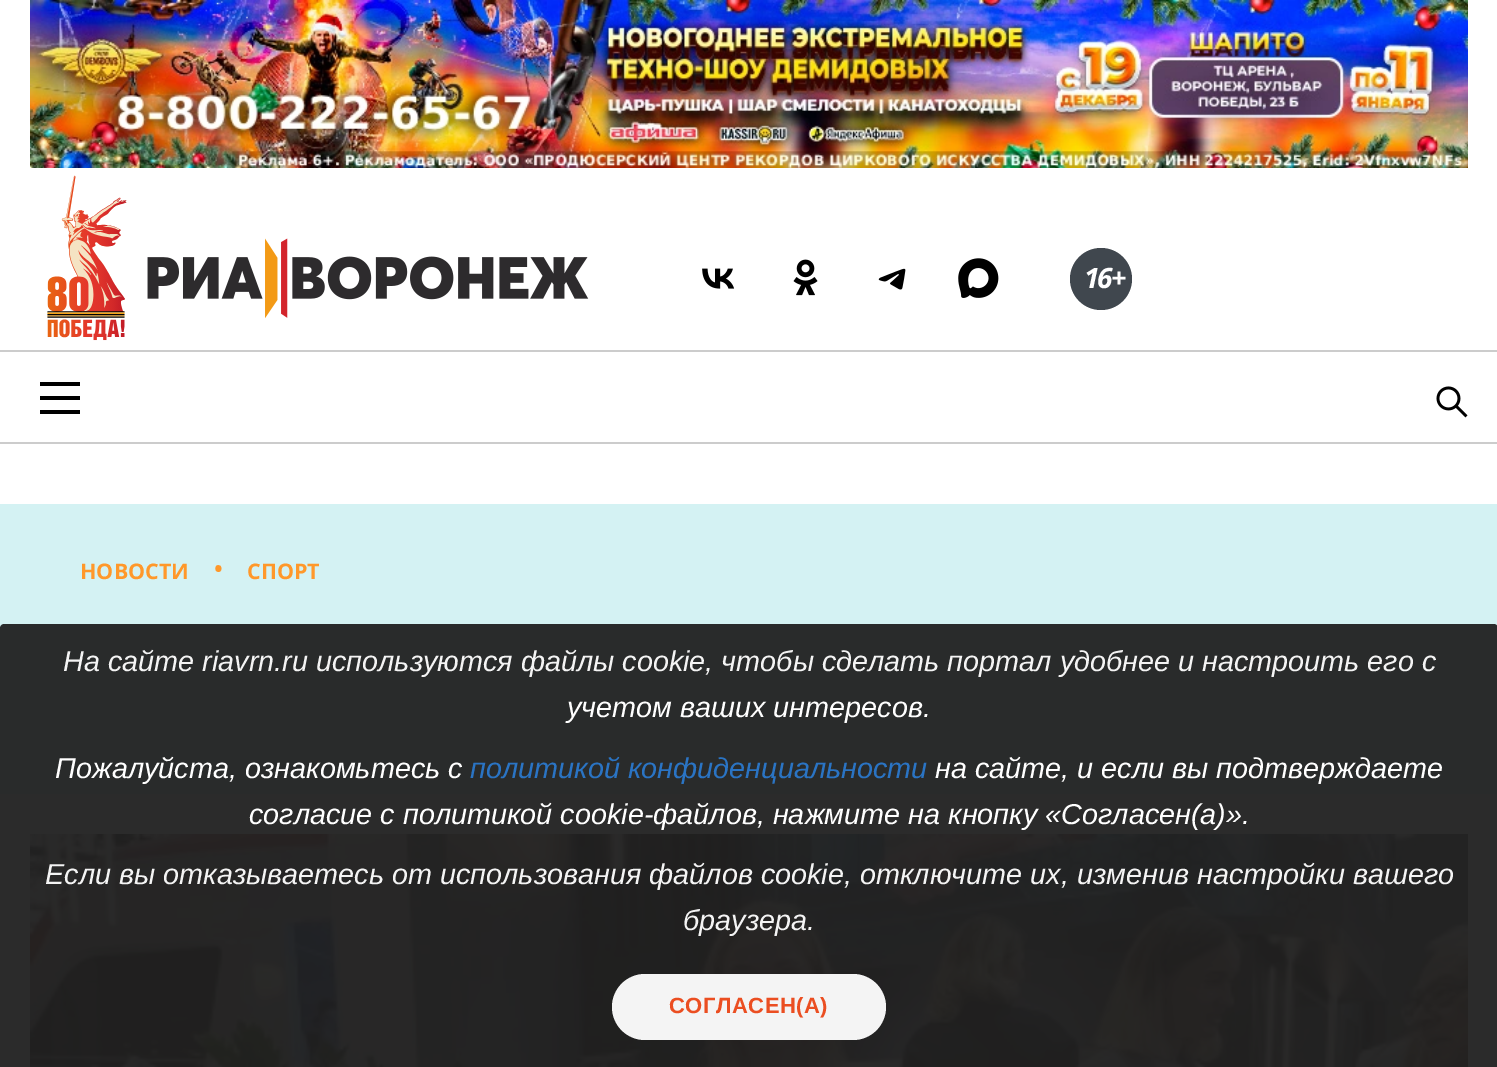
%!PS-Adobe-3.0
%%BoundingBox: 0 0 1497 1067
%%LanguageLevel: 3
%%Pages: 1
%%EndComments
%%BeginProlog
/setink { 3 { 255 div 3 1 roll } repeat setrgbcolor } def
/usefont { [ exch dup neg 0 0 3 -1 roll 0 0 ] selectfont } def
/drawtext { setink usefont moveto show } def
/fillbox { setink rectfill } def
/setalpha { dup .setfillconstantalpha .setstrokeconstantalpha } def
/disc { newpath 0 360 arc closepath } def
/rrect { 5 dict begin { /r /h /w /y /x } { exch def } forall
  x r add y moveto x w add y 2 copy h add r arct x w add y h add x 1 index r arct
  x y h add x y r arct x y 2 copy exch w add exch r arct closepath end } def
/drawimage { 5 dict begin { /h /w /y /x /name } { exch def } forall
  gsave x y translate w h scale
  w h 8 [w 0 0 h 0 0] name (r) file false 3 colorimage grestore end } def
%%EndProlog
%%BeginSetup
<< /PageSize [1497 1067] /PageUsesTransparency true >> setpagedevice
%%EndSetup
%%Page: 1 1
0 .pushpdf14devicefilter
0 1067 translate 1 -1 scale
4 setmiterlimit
0 0 1497 1067 255 255 255 fillbox
(assets/img1.rgb) 30 0 1438 168 drawimage
(assets/img2.rgb) 47 175 80 166 drawimage
(assets/img3.rgb) 147 238 442 81 drawimage
(assets/img4.rgb) 702 268 33 21 drawimage
(assets/img5.rgb) 793 259 25 37 drawimage
(assets/img6.rgb) 878 268 28 22 drawimage
(assets/img7.rgb) 958 258 41 40 drawimage
64 71 78 setink
1101 279 31 disc fill
/OpenSans-BoldItalic 28 usefont
255 255 255 setink
1084 288 moveto -2 0 (16+) ashow
0 350 1497 2 204 204 204 fillbox
0 442 1497 2 204 204 204 fillbox
40 410 40 4 0 0 0 fillbox
40 396 40 4 0 0 0 fillbox
40 382 40 4 0 0 0 fillbox
(assets/img8.rgb) 1436 386 32 32 drawimage
0 504 1497 290 212 242 243 fillbox
(НОВОСТИ) 80 579 /OpenSans-Bold 21.5 255 152 42 drawtext
(•) 213 579 /OpenSans-Regular 28.8 255 152 42 drawtext
(СПОРТ) 247 579 /OpenSans-Bold 21.5 255 152 42 drawtext
(assets/img9.rgb) 30 834 1438 233 drawimage
0.95 setalpha
32 32 32 setink
4 624 moveto 1494 624 lineto 1496 624 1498 626 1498 628 curveto 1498 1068 lineto 0 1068 lineto 0 628 lineto 0 626 2 624 4 624 curveto closepath fill
1 setalpha
(На сайте riavrn.ru используются файлы cookie, чтобы сделать портал удобнее и настроить его с) 63 671 /LiberationSans-Italic 28.8 244 244 244 drawtext
(учетом ваших интересов.) 567 717 /LiberationSans-Italic 28.8 255 255 255 drawtext
(Пожалуйста, ознакомьтесь с) 55 778 /LiberationSans-Italic 28.8 255 255 255 drawtext
(политикой конфиденциальности) 470 778 /LiberationSans-Italic 28.8 42 116 196 drawtext
(на сайте, и если вы подтверждаете) 935 778 /LiberationSans-Italic 28.8 255 255 255 drawtext
(согласие с политикой cookie-файлов, нажмите на кнопку «Согласен\(а\)».) 249 824 /LiberationSans-Italic 28.8 255 255 255 drawtext
(Если вы отказываетесь от использования файлов cookie, отключите их, изменив настройки вашего) 45 884 /LiberationSans-Italic 28.8 244 244 244 drawtext
(браузера.) 683 930 /LiberationSans-Italic 28.8 244 244 244 drawtext
0.95 setalpha
255 255 255 setink
612 974 274 66 33 rrect fill
/LiberationSans-Bold 22 usefont
1 setalpha
235 78 33 setink
669 1013 moveto 0.5 0 (СОГЛАСЕН\(А\)) ashow
.poppdf14devicefilter showpage
%%EOF
